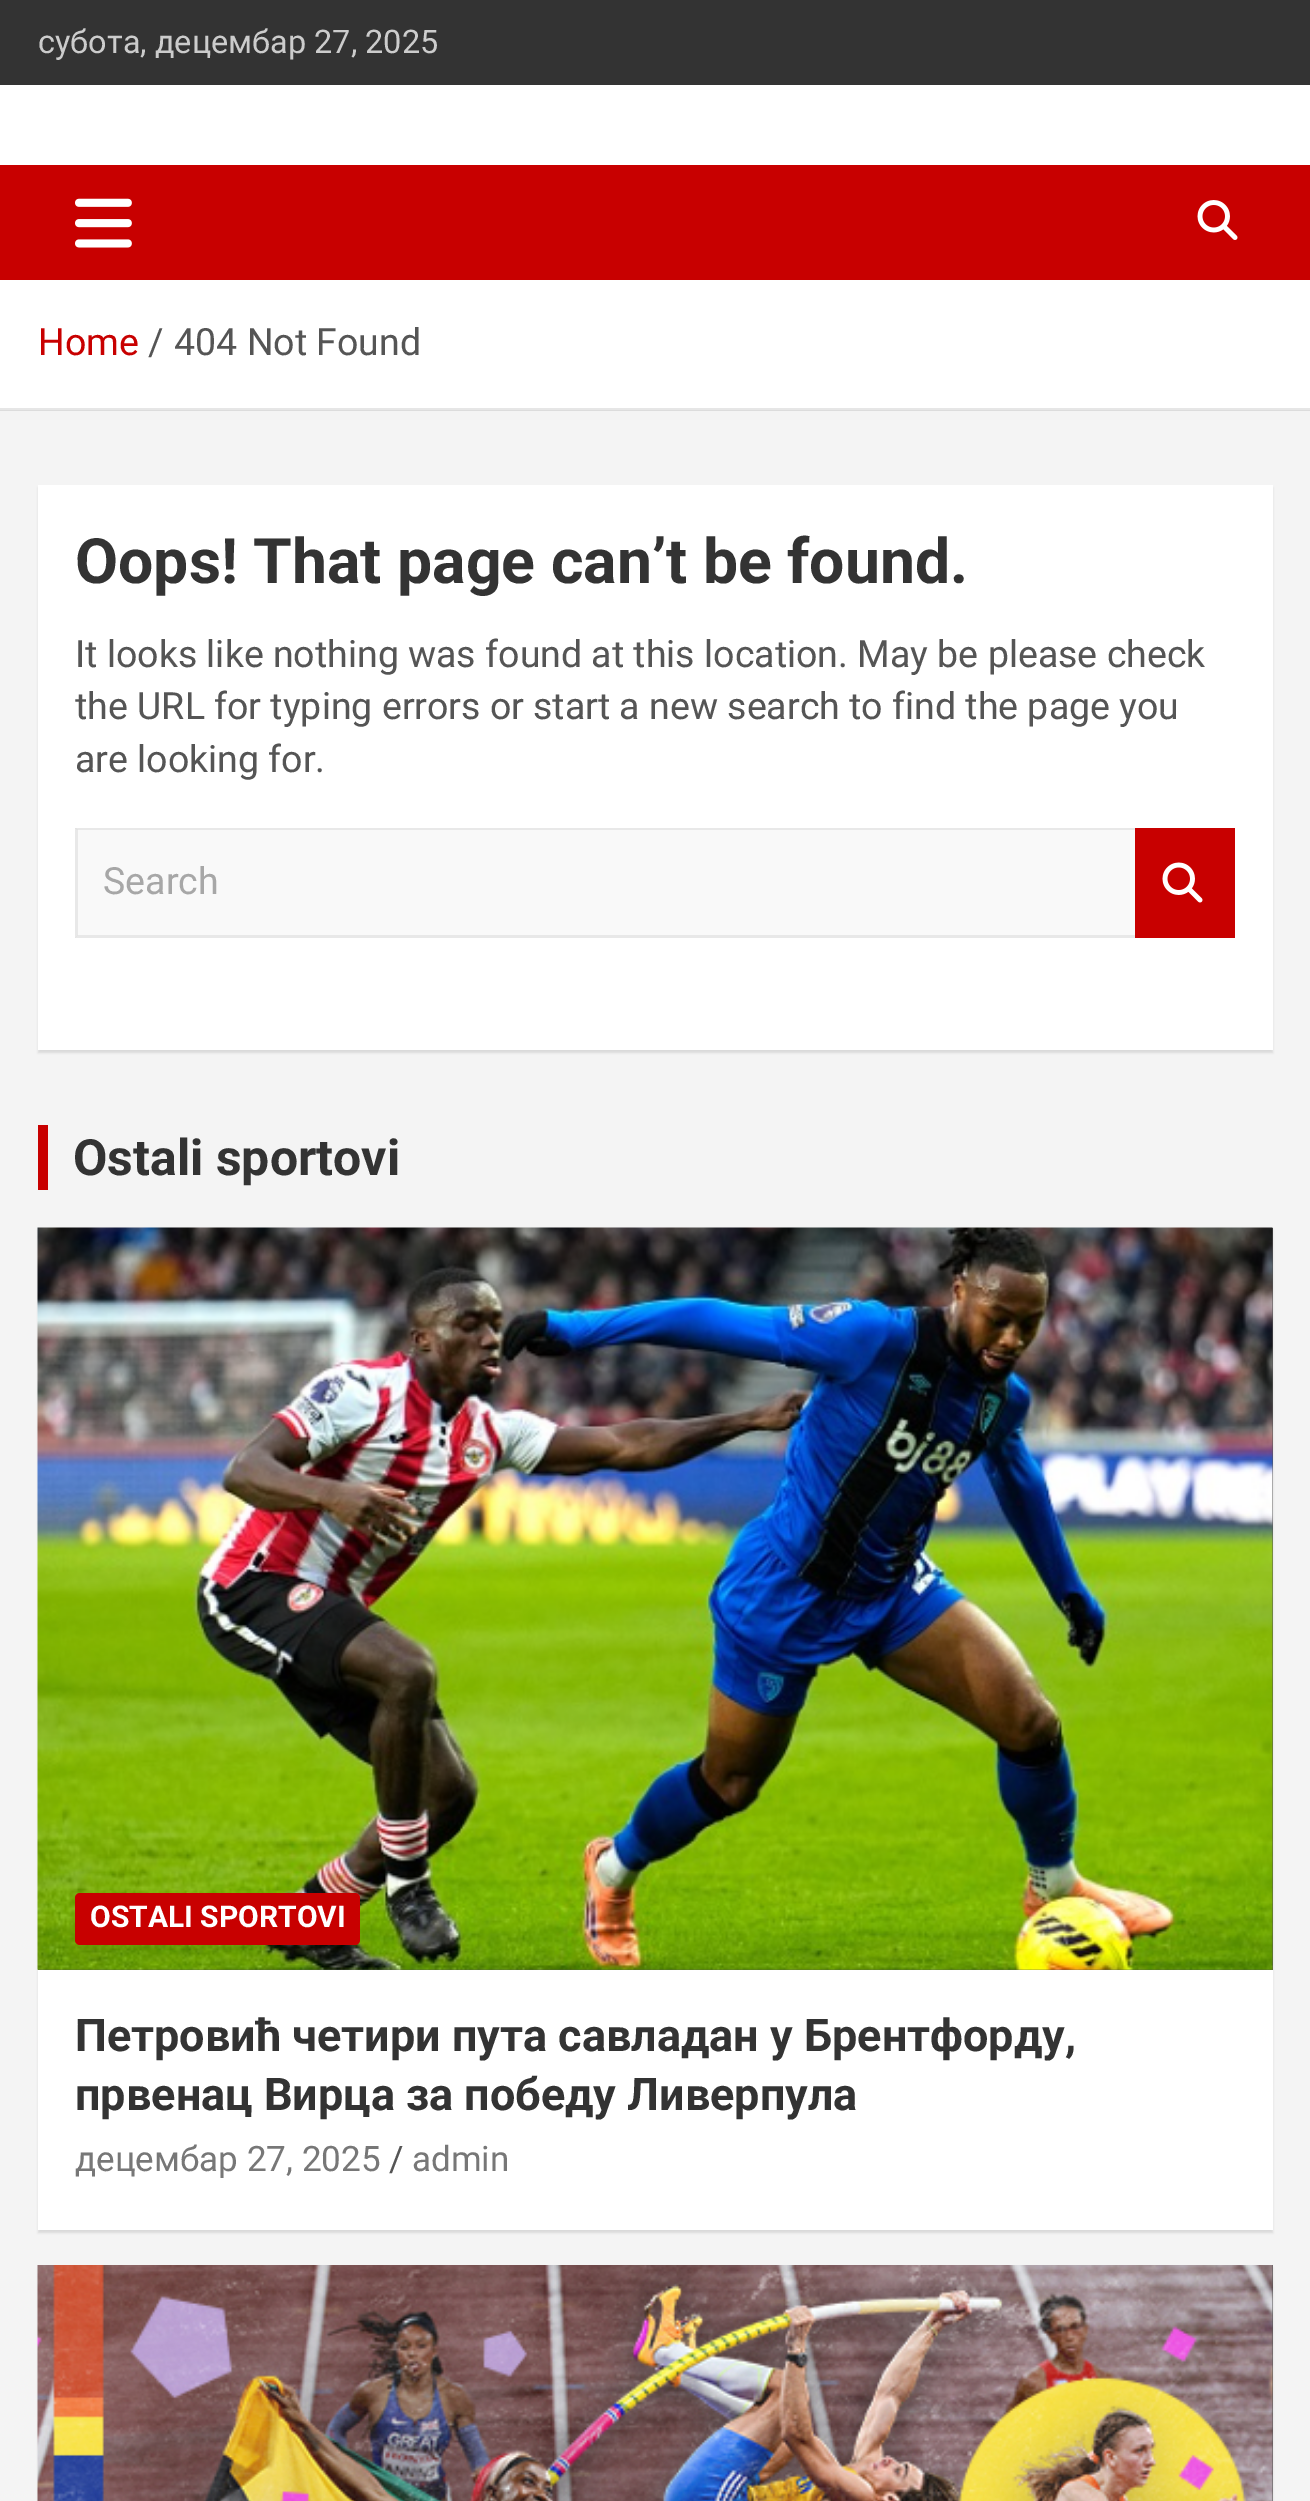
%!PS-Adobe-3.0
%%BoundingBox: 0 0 1310 2501
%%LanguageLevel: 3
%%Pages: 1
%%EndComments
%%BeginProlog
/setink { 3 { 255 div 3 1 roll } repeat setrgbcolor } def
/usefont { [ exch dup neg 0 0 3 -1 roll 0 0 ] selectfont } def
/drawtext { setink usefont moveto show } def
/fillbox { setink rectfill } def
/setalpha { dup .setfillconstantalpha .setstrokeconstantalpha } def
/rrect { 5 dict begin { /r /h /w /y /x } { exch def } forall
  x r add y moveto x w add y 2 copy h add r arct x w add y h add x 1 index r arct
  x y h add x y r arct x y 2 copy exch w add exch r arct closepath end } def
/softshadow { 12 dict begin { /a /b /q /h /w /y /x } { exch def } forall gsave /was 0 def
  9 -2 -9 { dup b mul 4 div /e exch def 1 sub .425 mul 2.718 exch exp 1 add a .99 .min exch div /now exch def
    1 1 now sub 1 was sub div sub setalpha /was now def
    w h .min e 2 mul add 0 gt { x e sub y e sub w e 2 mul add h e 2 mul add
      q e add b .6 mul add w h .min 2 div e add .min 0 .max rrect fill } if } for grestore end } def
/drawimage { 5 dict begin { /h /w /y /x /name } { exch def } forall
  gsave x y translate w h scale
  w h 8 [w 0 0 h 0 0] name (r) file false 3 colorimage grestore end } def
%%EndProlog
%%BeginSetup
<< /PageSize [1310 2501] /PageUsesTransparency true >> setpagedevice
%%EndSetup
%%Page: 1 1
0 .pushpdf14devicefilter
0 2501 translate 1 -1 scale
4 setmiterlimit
0 0 1310 2501 244 244 244 fillbox
0 410 1310 1 220 220 220 fillbox
0 0 1310 85 51 51 51 fillbox
(субота, децембар 27, 2025) 38 53 /Roboto-Regular 32.5 204 204 204 drawtext
0 85 1310 80 255 255 255 fillbox
0 165 1310 115 200 0 0 fillbox
(assets/img1.rgb) 75 198 57 50 drawimage
(assets/img2.rgb) 1197 200 41 40 drawimage
0 280 1310 128 255 255 255 fillbox
0 408 1310 2 230 230 230 fillbox
(Home) 38 355 /Roboto-Regular 37.5 200 0 0 drawtext
(/) 148 355 /Roboto-Regular 37.5 85 85 85 drawtext
(404 Not Found) 174 355 /Roboto-Regular 37.5 85 85 85 drawtext
0 0 0 setink
38 488 1235 565 0 1 0.1 softshadow
38 485 1235 565 255 255 255 fillbox
(Oops! That page can’t be found.) 75 583 /Roboto-Bold 62.5 51 51 51 drawtext
(It looks like nothing was found at this location. May be please check) 75 667 /Roboto-Regular 37.5 85 85 85 drawtext
(the URL for typing errors or start a new search to find the page you) 75 719 /Roboto-Regular 37.5 85 85 85 drawtext
(are looking for.) 75 772 /Roboto-Regular 37.5 85 85 85 drawtext
78 830 1057 105 249 249 249 fillbox
232 232 232 setink
75 828 moveto 1135 828 lineto 1135 830 lineto 78 830 lineto closepath fill
1135 938 moveto 75 938 lineto 78 935 lineto 1135 935 lineto closepath fill
0.09 setalpha
0 0 0 setink
75 938 moveto 75 828 lineto 78 830 lineto 78 935 lineto closepath fill
1 setalpha
(Search) 103 894 /Roboto-Regular 37.5 167 167 167 drawtext
1135 828 100 110 200 0 0 fillbox
(assets/img3.rgb) 1162 862 41 41 drawimage
38 1125 10 65 200 0 0 fillbox
(Ostali sportovi) 73 1175 /Roboto-Bold 50 51 51 51 drawtext
0 0 0 setink
38 1230 1235 1003 0 1 0.1 softshadow
38 1970 1235 260 255 255 255 fillbox
38 1228 1235 742 85 85 85 fillbox
(assets/img4.rgb) 37 1227 1236 743 drawimage
200 0 0 setink
75 1893 285 52 5 rrect fill
(OSTALI SPORTOVI) 90 1927 /Roboto-Bold 30 255 255 255 drawtext
(Петровић четири пута савладан у Брентфорду,) 75 2051 /Roboto-Bold 45 51 51 51 drawtext
(првенац Вирца за победу Ливерпула) 75 2110 /Roboto-Bold 45 51 51 51 drawtext
(децембар 27, 2025) 75 2171 /Roboto-Regular 35 119 119 119 drawtext
(/) 389 2171 /Roboto-Regular 35 85 85 85 drawtext
(admin) 412 2171 /Roboto-Regular 35 119 119 119 drawtext
0 0 0 setink
38 2268 1235 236 0 1 0.1 softshadow
1272 2265 1 236 85 85 85 fillbox
(assets/img5.rgb) 37 2265 1236 236 drawimage
.poppdf14devicefilter showpage
%%EOF
